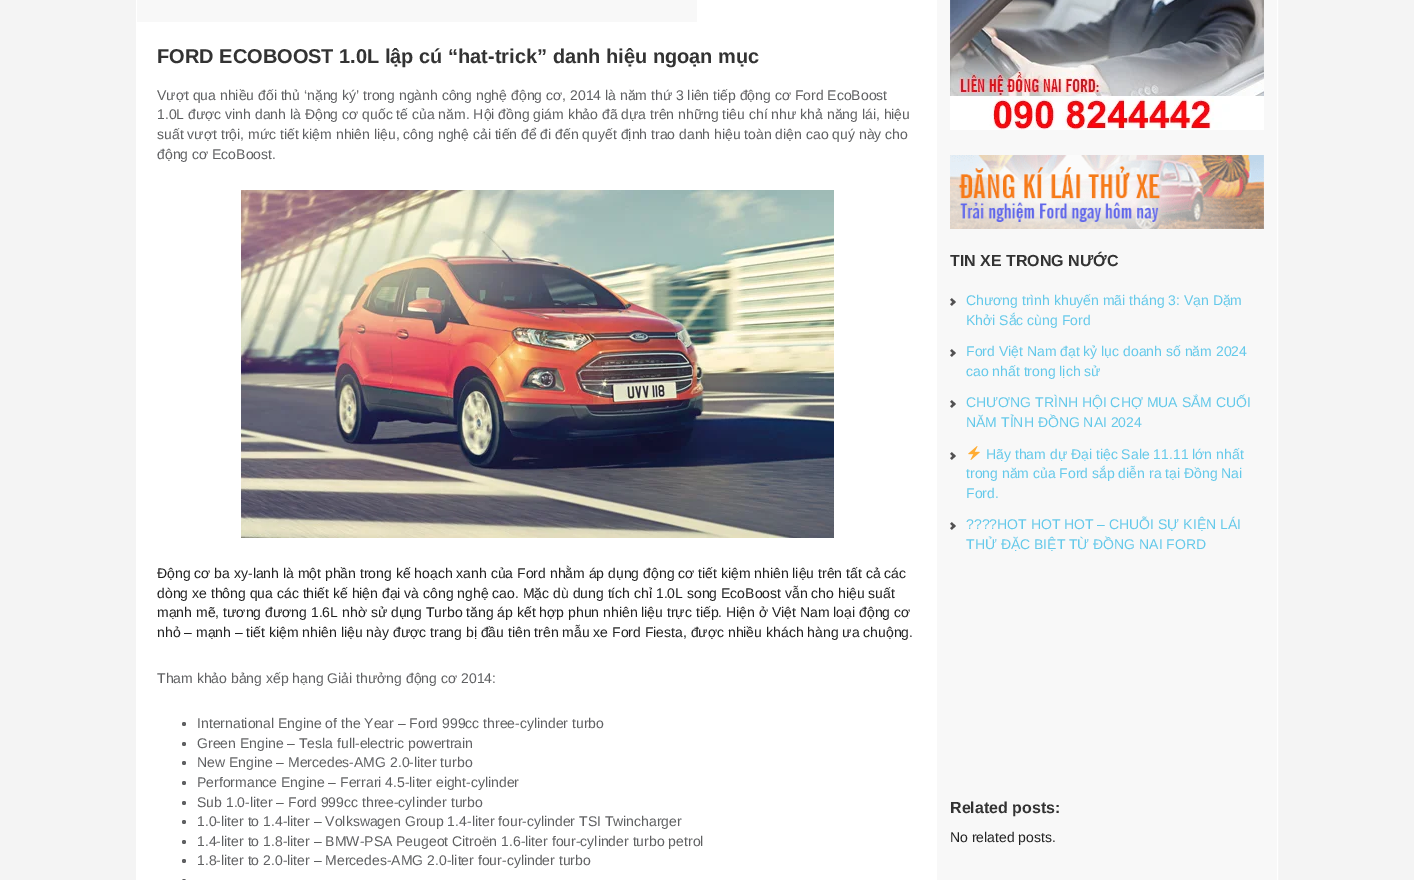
%!PS-Adobe-3.0
%%BoundingBox: 0 0 1414 880
%%LanguageLevel: 3
%%Pages: 1
%%EndComments
%%BeginProlog
/setink { 3 { 255 div 3 1 roll } repeat setrgbcolor } def
/usefont { [ exch dup neg 0 0 3 -1 roll 0 0 ] selectfont } def
/drawtext { setink usefont moveto show } def
/fillbox { setink rectfill } def
/disc { newpath 0 360 arc closepath } def
/rrect { 5 dict begin { /r /h /w /y /x } { exch def } forall
  x r add y moveto x w add y 2 copy h add r arct x w add y h add x 1 index r arct
  x y h add x y r arct x y 2 copy exch w add exch r arct closepath end } def
/drawimage { 5 dict begin { /h /w /y /x /name } { exch def } forall
  gsave x y translate w h scale
  w h 8 [w 0 0 h 0 0] name (r) file false 3 colorimage grestore end } def
%%EndProlog
%%BeginSetup
<< /PageSize [1414 880] >> setpagedevice
%%EndSetup
%%Page: 1 1
0 880 translate 1 -1 scale
4 setmiterlimit
0 0 1414 880 244 244 244 fillbox
255 255 255 setink
136.5 -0.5 1141 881 rectstroke
137 0 800 880 255 255 255 fillbox
137 0 560 22 248 248 248 fillbox
(FORD ECOBOOST 1.0L lập cú “hat-trick” danh hiệu ngoạn mục) 157 63 /LiberationSans-Bold 20 51 51 51 drawtext
(Vượt qua nhiều đối thủ ‘nặng ký’ trong ngành công nghệ động cơ, 2014 là năm thứ 3 liên tiếp động cơ Ford EcoBoost) 157 100 /LiberationSans-Regular 14 95 96 98 drawtext
(1.0L được vinh danh là Động cơ quốc tế của năm. Hội đồng giám khảo đã dựa trên những tiêu chí như khả năng lái, hiệu) 157 119 /LiberationSans-Regular 14 95 96 98 drawtext
(suất vượt trội, mức tiết kiệm nhiên liệu, công nghệ cải tiến để đi đến quyết định trao danh hiệu toàn diện cao quý này cho) 157 139 /LiberationSans-Regular 14 95 96 98 drawtext
(động cơ EcoBoost.) 157 159 /LiberationSans-Regular 14 95 96 98 drawtext
(assets/img1.rgb) 241 190 593 348 drawimage
(Động cơ ba xy-lanh là một phần trong kế hoạch xanh của Ford nhằm áp dụng động cơ tiết kiệm nhiên liệu trên tất cả các) 157 578 /LiberationSans-Regular 14 34 34 34 drawtext
(dòng xe thông qua các thiết kế hiện đại và công nghệ cao. Mặc dù dung tích chỉ 1.0L song EcoBoost vẫn cho hiệu suất) 157 598 /LiberationSans-Regular 14 34 34 34 drawtext
(mạnh mẽ, tương đương 1.6L nhờ sử dụng Turbo tăng áp kết hợp phun nhiên liệu trực tiếp. Hiện ở Việt Nam loại động cơ) 157 617 /LiberationSans-Regular 14 34 34 34 drawtext
(nhỏ – mạnh – tiết kiệm nhiên liệu này được trang bị đầu tiên trên mẫu xe Ford Fiesta, được nhiều khách hàng ưa chuộng.) 157 637 /LiberationSans-Regular 14 34 34 34 drawtext
(Tham khảo bảng xếp hạng Giải thưởng động cơ 2014:) 157 683 /LiberationSans-Regular 14 95 96 98 drawtext
184 724 2 disc fill
(International Engine of the Year – Ford 999cc three-cylinder turbo) 197 728 /LiberationSans-Regular 14 95 96 98 drawtext
184 744 2 disc fill
(Green Engine – Tesla full-electric powertrain) 197 748 /LiberationSans-Regular 14 95 96 98 drawtext
184 763 2 disc fill
(New Engine – Mercedes-AMG 2.0-liter turbo) 197 767 /LiberationSans-Regular 14 95 96 98 drawtext
184 783 2 disc fill
(Performance Engine – Ferrari 4.5-liter eight-cylinder) 197 787 /LiberationSans-Regular 14 95 96 98 drawtext
184 803 2 disc fill
(Sub 1.0-liter – Ford 999cc three-cylinder turbo) 197 807 /LiberationSans-Regular 14 95 96 98 drawtext
184 822 2 disc fill
(1.0-liter to 1.4-liter – Volkswagen Group 1.4-liter four-cylinder TSI Twincharger) 197 826 /LiberationSans-Regular 14 95 96 98 drawtext
184 842 2 disc fill
(1.4-liter to 1.8-liter – BMW-PSA Peugeot Citroën 1.6-liter four-cylinder turbo petrol) 197 846 /LiberationSans-Regular 14 95 96 98 drawtext
184 861 2 disc fill
(1.8-liter to 2.0-liter – Mercedes-AMG 2.0-liter four-cylinder turbo) 197 865 /LiberationSans-Regular 14 95 96 98 drawtext
182 879 4 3 2 rrect fill
937 0 340 880 248 248 248 fillbox
(assets/img2.rgb) 950 0 314 130 drawimage
(assets/img3.rgb) 950 155 314 74 drawimage
(TIN XE TRONG NƯỚC) 950 266 /LiberationSans-Bold 16 51 51 51 drawtext
(assets/img4.rgb) 950 298 6 8 drawimage
(Chương trình khuyến mãi tháng 3: Vạn Dặm) 966 305 /LiberationSans-Regular 14 100 201 234 drawtext
(Khởi Sắc cùng Ford) 966 325 /LiberationSans-Regular 14 100 201 234 drawtext
(assets/img4.rgb) 950 349 6 8 drawimage
(Ford Việt Nam đạt kỷ lục doanh số năm 2024) 966 356 /LiberationSans-Regular 14 100 201 234 drawtext
(cao nhất trong lịch sử) 966 376 /LiberationSans-Regular 14 100 201 234 drawtext
(assets/img4.rgb) 950 400 6 8 drawimage
(CHƯƠNG TRÌNH HỘI CHỢ MUA SẮM CUỐI) 966 407 /LiberationSans-Regular 14 100 201 234 drawtext
(NĂM TỈNH ĐỒNG NAI 2024) 966 427 /LiberationSans-Regular 14 100 201 234 drawtext
(assets/img4.rgb) 950 452 6 8 drawimage
(assets/img5.rgb) 968 446 12 14 drawimage
(Hãy tham dự Đại tiệc Sale 11.11 lớn nhất) 986 459 /LiberationSans-Regular 14 100 201 234 drawtext
(trong năm của Ford sắp diễn ra tại Đồng Nai) 966 478 /LiberationSans-Regular 14 100 201 234 drawtext
(Ford.) 966 498 /LiberationSans-Regular 14 100 201 234 drawtext
(assets/img4.rgb) 950 522 6 8 drawimage
(????HOT HOT HOT – CHUỖI SỰ KIỆN LÁI) 966 529 /LiberationSans-Regular 14 100 201 234 drawtext
(THỬ ĐẶC BIỆT TỪ ĐỒNG NAI FORD) 966 549 /LiberationSans-Regular 14 100 201 234 drawtext
(Related posts:) 950 813 /LiberationSans-Bold 16 51 51 51 drawtext
(No related posts.) 950 842 /LiberationSans-Regular 14 34 34 34 drawtext
showpage
%%EOF
